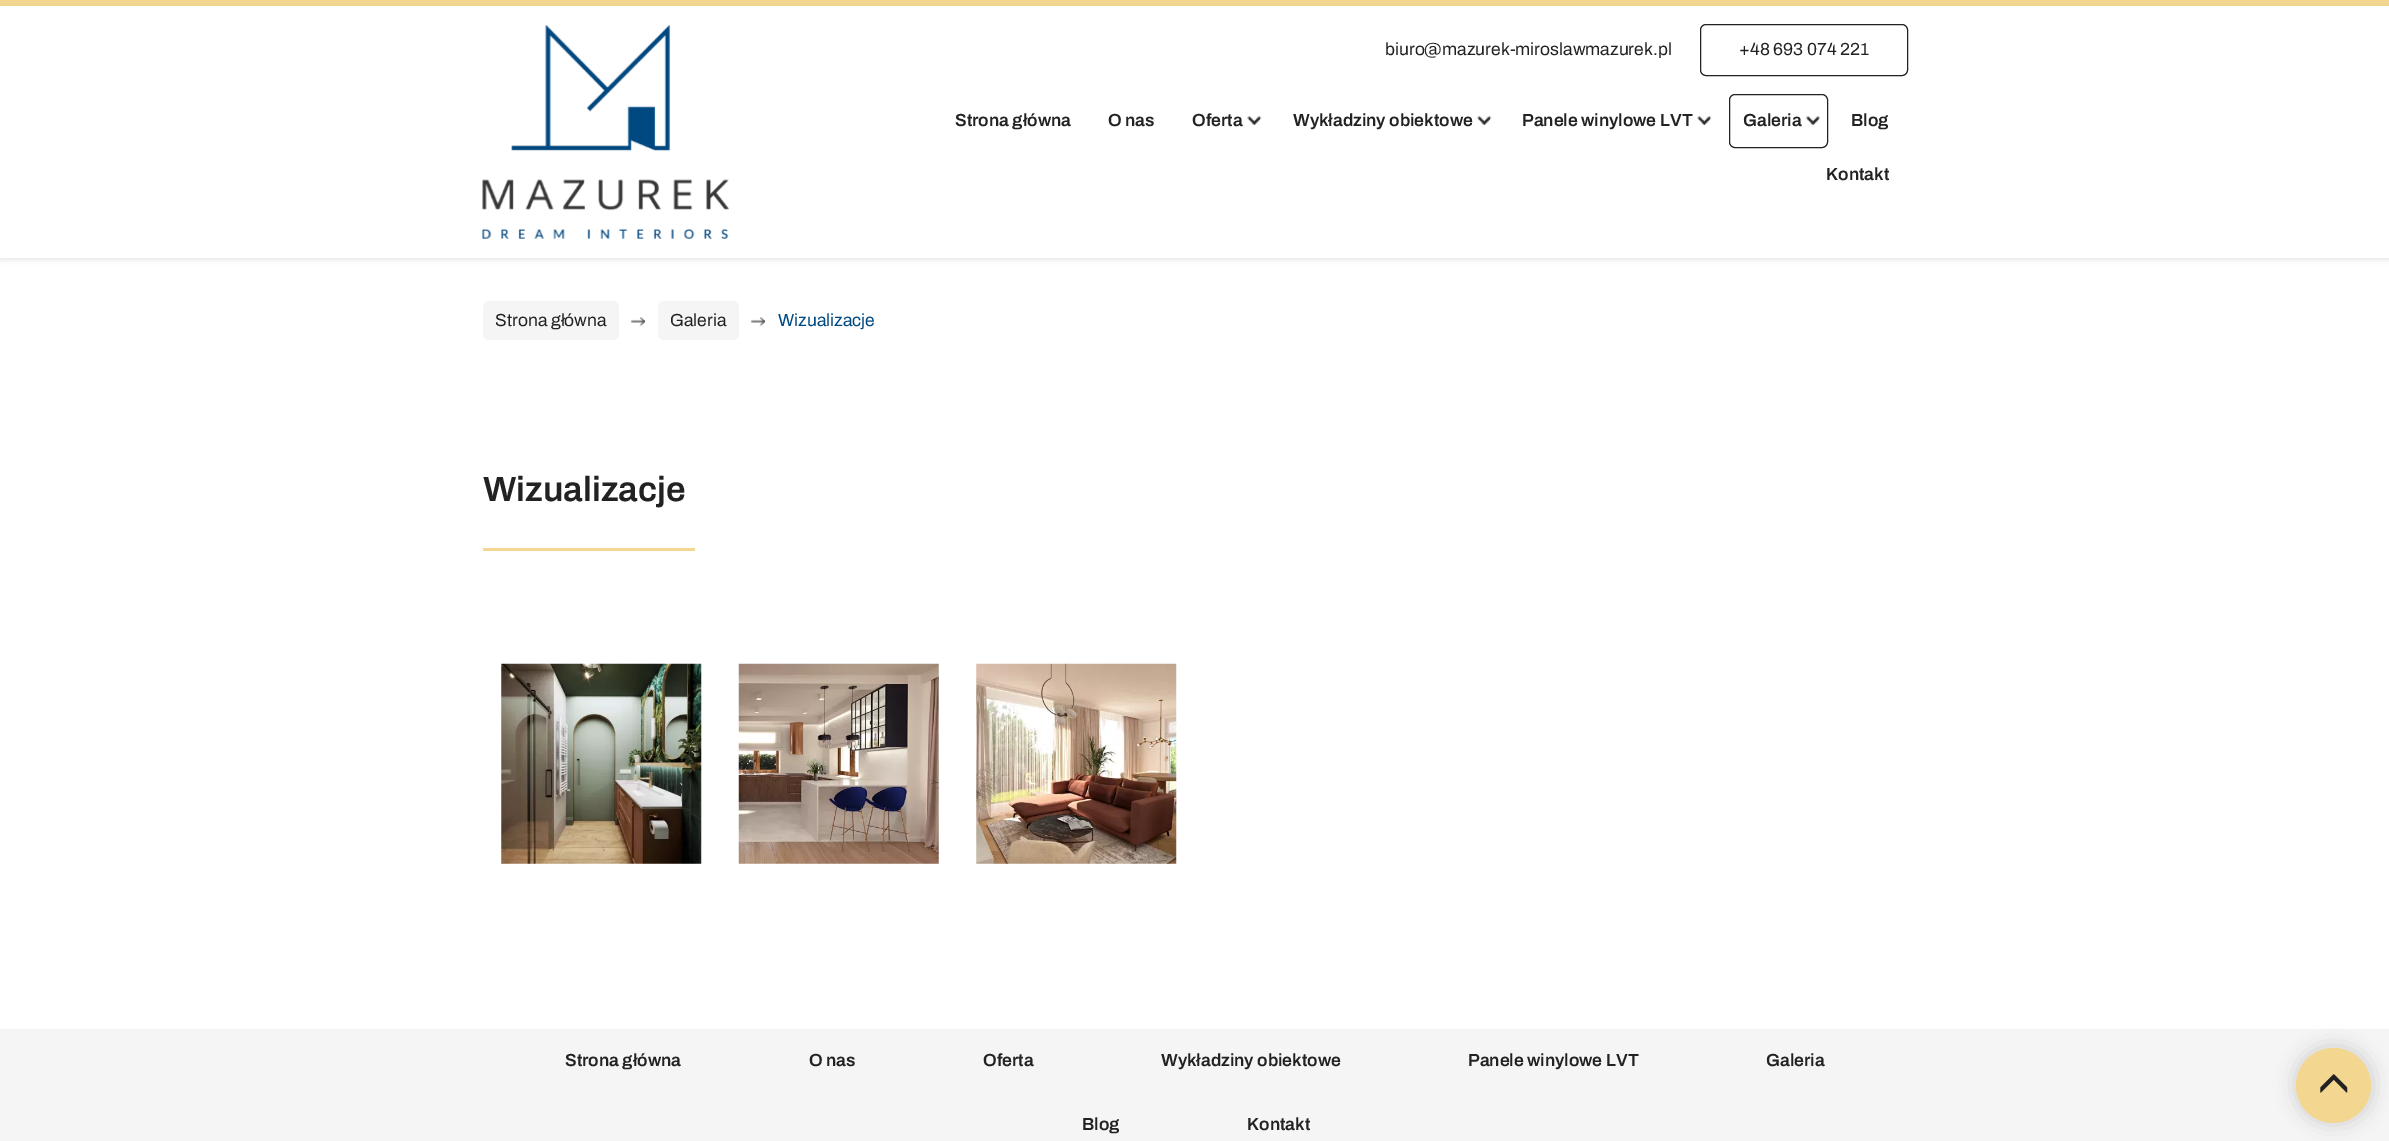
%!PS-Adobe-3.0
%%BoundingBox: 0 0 2389 1141
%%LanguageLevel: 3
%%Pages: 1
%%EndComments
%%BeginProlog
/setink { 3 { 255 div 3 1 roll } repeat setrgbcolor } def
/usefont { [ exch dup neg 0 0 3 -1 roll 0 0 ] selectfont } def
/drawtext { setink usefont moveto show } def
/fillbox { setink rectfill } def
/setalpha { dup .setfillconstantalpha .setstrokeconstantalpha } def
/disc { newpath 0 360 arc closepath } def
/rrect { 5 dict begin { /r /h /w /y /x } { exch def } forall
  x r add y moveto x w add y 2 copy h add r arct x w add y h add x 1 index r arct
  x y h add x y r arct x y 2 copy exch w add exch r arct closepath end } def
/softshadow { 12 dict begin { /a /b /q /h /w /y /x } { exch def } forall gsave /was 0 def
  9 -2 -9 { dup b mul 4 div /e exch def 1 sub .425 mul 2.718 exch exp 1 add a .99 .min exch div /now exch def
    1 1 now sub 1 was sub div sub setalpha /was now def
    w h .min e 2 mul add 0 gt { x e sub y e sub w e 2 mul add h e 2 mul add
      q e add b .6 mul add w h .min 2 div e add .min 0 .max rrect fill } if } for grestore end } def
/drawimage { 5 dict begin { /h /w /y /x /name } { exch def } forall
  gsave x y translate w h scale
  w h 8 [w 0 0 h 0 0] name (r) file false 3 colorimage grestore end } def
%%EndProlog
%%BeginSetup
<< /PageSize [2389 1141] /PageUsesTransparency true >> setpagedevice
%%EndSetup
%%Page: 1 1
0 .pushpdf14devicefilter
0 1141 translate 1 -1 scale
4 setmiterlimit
0 0 2389 1141 255 255 255 fillbox
0 0 2389 6 243 214 144 fillbox
gsave
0 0 moveto 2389 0 lineto 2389 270 lineto 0 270 lineto closepath 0 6 moveto 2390 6 lineto 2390 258 lineto 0 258 lineto closepath eoclip newpath
0 0 0 setink
0 9 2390 251 0 3 0.1 softshadow
grestore
0.95 setalpha
0 257 2389 1 255 255 255 fillbox
1 setalpha
(assets/img1.rgb) 482 25 247 214 drawimage
(biuro@mazurek-miroslawmazurek.pl) 1385 55 /Archivo-Regular 17.5 34 34 34 drawtext
1700.5 24.5 207 51 5.5 rrect stroke
(+48 693 074 221) 1739 55 /Archivo-Regular 17.5 34 34 34 drawtext
(Strona główna) 955 126 /Archivo-SemiBold 17.5 34 34 34 drawtext
(O nas) 1108 126 /Archivo-SemiBold 17.5 34 34 34 drawtext
(assets/img2.rgb) 1247 116 15 9 drawimage
(Oferta) 1192 126 /Archivo-SemiBold 17.5 34 34 34 drawtext
(assets/img2.rgb) 1477 116 15 9 drawimage
(Wykładziny obiektowe) 1293 126 /Archivo-SemiBold 17.5 34 34 34 drawtext
(assets/img2.rgb) 1697 116 15 9 drawimage
(Panele winylowe LVT) 1522 126 /Archivo-SemiBold 17.5 34 34 34 drawtext
(assets/img3.rgb) 1806 116 14 9 drawimage
1729.5 94.5 98 53 5.5 rrect stroke
(Galeria) 1743 126 /Archivo-SemiBold 17.5 34 34 34 drawtext
(Blog) 1851 126 /Archivo-SemiBold 17.5 34 34 34 drawtext
(Kontakt) 1826 180 /Archivo-SemiBold 17.5 34 34 34 drawtext
245 245 245 setink
483 301 136 39 6 rrect fill
(Strona główna) 495 326 /Archivo-Regular 17.5 34 34 34 drawtext
(assets/img4.rgb) 631 317 14 10 drawimage
245 245 245 setink
658 301 81 39 6 rrect fill
(Galeria) 670 326 /Archivo-Regular 17.5 34 34 34 drawtext
(assets/img4.rgb) 751 317 14 10 drawimage
(Wizualizacje) 778 326 /Archivo-Regular 17.5 0 73 128 drawtext
(Wizualizacje) 483 501 /Archivo-SemiBold 35 34 34 34 drawtext
483 548 212 3 243 214 144 fillbox
(assets/img5.rgb) 501 663 201 201 drawimage
(assets/img6.rgb) 738 663 201 201 drawimage
(assets/img7.rgb) 976 663 201 201 drawimage
0 1029 2389 112 245 245 245 fillbox
(Strona główna) 565 1066 /Archivo-SemiBold 17.5 34 34 34 drawtext
(O nas) 809 1066 /Archivo-SemiBold 17.5 34 34 34 drawtext
(Oferta) 983 1066 /Archivo-SemiBold 17.5 34 34 34 drawtext
(Wykładziny obiektowe) 1161 1066 /Archivo-SemiBold 17.5 34 34 34 drawtext
(Panele winylowe LVT) 1468 1066 /Archivo-SemiBold 17.5 34 34 34 drawtext
(Galeria) 1766 1066 /Archivo-SemiBold 17.5 34 34 34 drawtext
(Blog) 1082 1130 /Archivo-SemiBold 17.5 34 34 34 drawtext
(Kontakt) 1247 1130 /Archivo-SemiBold 17.5 34 34 34 drawtext
0 0 0 setink
2295 1046 78 78 39 10 0.15 softshadow
243 214 144 setink
2333.5 1085.5 37.5 disc fill
(assets/img8.rgb) 2320 1074 28 19 drawimage
.poppdf14devicefilter showpage
%%EOF
